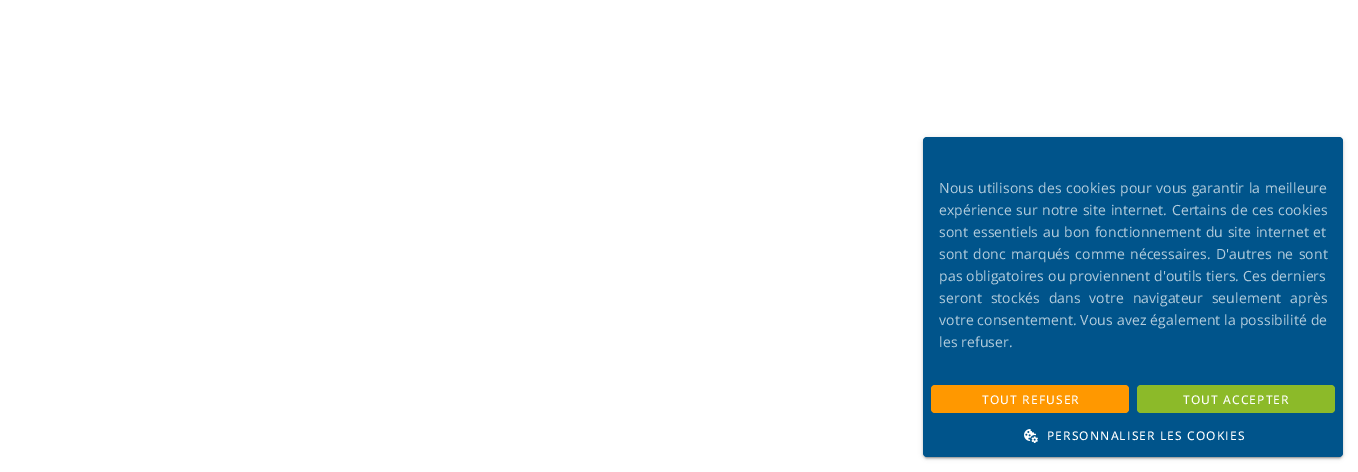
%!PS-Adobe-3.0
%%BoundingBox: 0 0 1358 472
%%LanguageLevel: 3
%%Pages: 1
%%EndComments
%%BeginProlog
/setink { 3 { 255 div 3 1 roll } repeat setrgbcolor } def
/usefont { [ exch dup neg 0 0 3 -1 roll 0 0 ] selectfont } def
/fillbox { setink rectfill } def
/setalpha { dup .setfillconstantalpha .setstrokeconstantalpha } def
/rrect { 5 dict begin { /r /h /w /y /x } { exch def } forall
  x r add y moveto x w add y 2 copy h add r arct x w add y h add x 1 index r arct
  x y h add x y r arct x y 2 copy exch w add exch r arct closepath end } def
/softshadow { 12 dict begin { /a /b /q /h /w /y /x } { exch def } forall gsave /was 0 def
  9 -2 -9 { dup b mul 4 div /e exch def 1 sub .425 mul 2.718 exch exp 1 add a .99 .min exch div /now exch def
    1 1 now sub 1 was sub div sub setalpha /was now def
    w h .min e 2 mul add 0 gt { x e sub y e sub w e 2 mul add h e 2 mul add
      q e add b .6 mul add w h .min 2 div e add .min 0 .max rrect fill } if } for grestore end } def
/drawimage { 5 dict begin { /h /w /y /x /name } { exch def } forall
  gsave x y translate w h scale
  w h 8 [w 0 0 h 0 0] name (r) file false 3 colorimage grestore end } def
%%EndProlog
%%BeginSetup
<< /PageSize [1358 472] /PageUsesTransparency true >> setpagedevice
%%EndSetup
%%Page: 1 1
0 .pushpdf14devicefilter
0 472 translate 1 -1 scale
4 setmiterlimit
0 0 1358 472 255 255 255 fillbox
0 0 0 setink
923 138 420 320 4 2.5 0.12 softshadow
923 139 420 320 4 1 0.14 softshadow
925 142 416 316 2 0.5 0.2 softshadow
0 84 139 setink
923 137 420 320 4 rrect fill
/OpenSans-Regular 14 usefont
179 204 220 setink
939 193 moveto 0.75 0 32 0.1 0 (Nous utilisons des cookies pour vous garantir la meilleure) awidthshow
939 215 moveto 0.75 0 32 0.1 0 (expérience sur notre site internet. Certains de ces cookies) awidthshow
939 237 moveto 1 0 32 0.1 0 (sont essentiels au bon fonctionnement du site internet et) awidthshow
939 259 moveto 1.5 0 32 0.1 0 (sont donc marqués comme nécessaires. D'autres ne sont) awidthshow
939 281 moveto 0.25 0 32 0.1 0 (pas obligatoires ou proviennent d'outils tiers. Ces derniers) awidthshow
939 303 moveto 5 0 32 0.1 0 (seront stockés dans votre navigateur seulement après) awidthshow
939 325 moveto 0.25 0 32 0.1 0 (votre consentement. Vous avez également la possibilité de) awidthshow
939 347 moveto 0.1 0 (les refuser.) ashow
255 152 0 setink
931 385 198 28 4 rrect fill
/OpenSans-Medium 12 usefont
255 255 255 setink
982 404 moveto 1.1 0 (TOUT REFUSER) ashow
140 186 41 setink
1137 385 198 28 4 rrect fill
255 255 255 setink
1183 404 moveto 1.1 0 (TOUT ACCEPTER) ashow
(assets/img1.rgb) 1024 429 14 14 drawimage
1047 440 moveto 1.1 0 (PERSONNALISER LES COOKIES) ashow
.poppdf14devicefilter showpage
%%EOF
